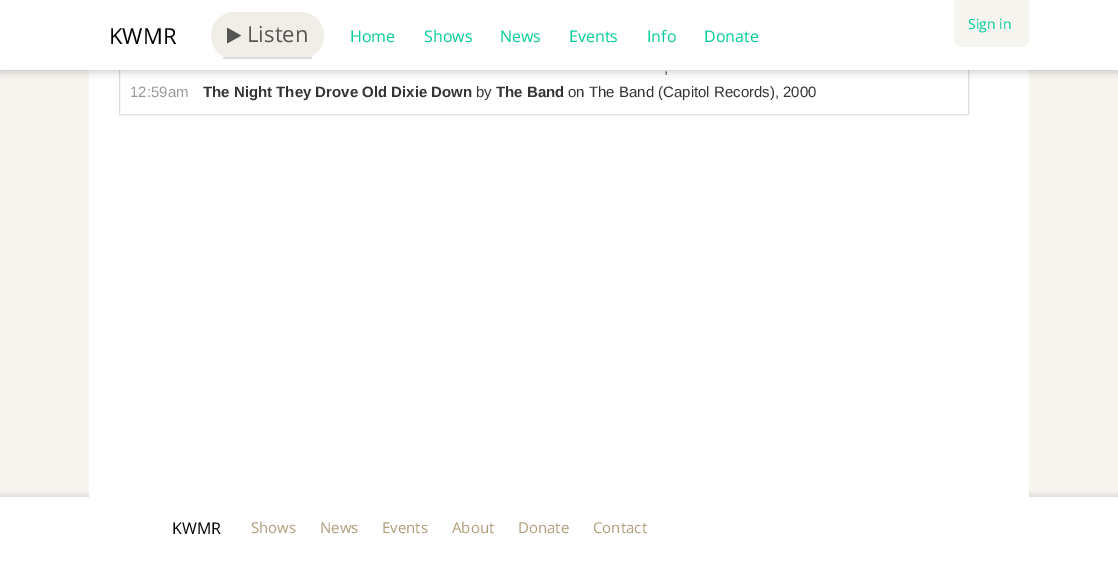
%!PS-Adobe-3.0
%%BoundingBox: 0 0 1118 569
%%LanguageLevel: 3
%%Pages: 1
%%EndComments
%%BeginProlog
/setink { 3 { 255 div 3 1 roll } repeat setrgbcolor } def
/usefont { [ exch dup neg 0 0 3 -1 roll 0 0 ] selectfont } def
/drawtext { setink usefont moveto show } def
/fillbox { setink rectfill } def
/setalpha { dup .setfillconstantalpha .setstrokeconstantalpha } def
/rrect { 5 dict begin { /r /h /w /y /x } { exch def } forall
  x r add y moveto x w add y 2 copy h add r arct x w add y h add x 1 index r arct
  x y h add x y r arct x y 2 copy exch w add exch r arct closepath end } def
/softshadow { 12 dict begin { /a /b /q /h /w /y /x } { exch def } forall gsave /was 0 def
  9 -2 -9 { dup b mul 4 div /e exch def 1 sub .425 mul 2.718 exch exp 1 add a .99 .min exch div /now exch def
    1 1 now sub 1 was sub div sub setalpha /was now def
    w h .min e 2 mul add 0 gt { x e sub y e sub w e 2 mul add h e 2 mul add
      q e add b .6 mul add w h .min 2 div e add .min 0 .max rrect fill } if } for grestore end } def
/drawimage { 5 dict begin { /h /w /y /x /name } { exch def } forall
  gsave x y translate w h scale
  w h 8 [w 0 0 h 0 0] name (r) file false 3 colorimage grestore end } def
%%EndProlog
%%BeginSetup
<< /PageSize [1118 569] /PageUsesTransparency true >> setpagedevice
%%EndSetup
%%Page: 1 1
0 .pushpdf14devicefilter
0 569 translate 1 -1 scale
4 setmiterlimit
0 0 1118 569 246 245 240 fillbox
0 0 0 setink
0 495 1118 72 0 3 0.12 softshadow
89 70 940 427 255 255 255 fillbox
221 221 221 setink
119.5 -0.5 849 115 rectstroke
0 0 0 setink
0 2 1118 70 0 4 0.2 softshadow
0 0 1118 70 255 255 255 fillbox
(KWMR) 109 44 /OpenSans-Regular 22 0 0 0 drawtext
240 238 230 setink
211 12 113 47 23.5 rrect fill
223 57 89 2 221 221 221 fillbox
(assets/img1.rgb) 227 27 14 17 drawimage
(Listen) 247 42 /OpenSans-Regular 22 85 85 85 drawtext
(Home) 350 42 /OpenSans-Regular 16 0 204 153 drawtext
(Shows) 424 42 /OpenSans-Regular 16 0 204 153 drawtext
(News) 500 42 /OpenSans-Regular 16 0 204 153 drawtext
(Events) 569 42 /OpenSans-Regular 16 0 204 153 drawtext
(Info) 647 42 /OpenSans-Regular 16 0 204 153 drawtext
(Donate) 704 42 /OpenSans-Regular 16 0 204 153 drawtext
246 245 240 setink
954 0 moveto 1029 0 lineto 1029 39 lineto 1029 43.5 1025.5 47 1021 47 curveto 962 47 lineto 957.5 47 954 43.5 954 39 curveto closepath fill
(Sign in) 968 29 /OpenSans-Regular 14 0 204 153 drawtext
(,) 664 73 /LiberationSans-Regular 15 51 51 51 drawtext
(12:59am) 130 97 /LiberationSans-Regular 15 153 153 153 drawtext
(The Night They Drove Old Dixie Down) 203 97 /LiberationSans-Bold 15 51 51 51 drawtext
(by) 476 97 /LiberationSans-Regular 15 51 51 51 drawtext
(The Band) 496 97 /LiberationSans-Bold 15 51 51 51 drawtext
(on The Band \(Capitol Records\), 2000) 568 97 /LiberationSans-Regular 15 51 51 51 drawtext
0 497 1118 72 255 255 255 fillbox
(KWMR) 172 534 /OpenSans-Regular 16 0 0 0 drawtext
(Shows) 251 533 /OpenSans-Regular 15 175 156 121 drawtext
(News) 320 533 /OpenSans-Regular 15 175 156 121 drawtext
(Events) 382 533 /OpenSans-Regular 15 175 156 121 drawtext
(About) 452 533 /OpenSans-Regular 15 175 156 121 drawtext
(Donate) 518 533 /OpenSans-Regular 15 175 156 121 drawtext
(Contact) 593 533 /OpenSans-Regular 15 175 156 121 drawtext
.poppdf14devicefilter showpage
%%EOF
